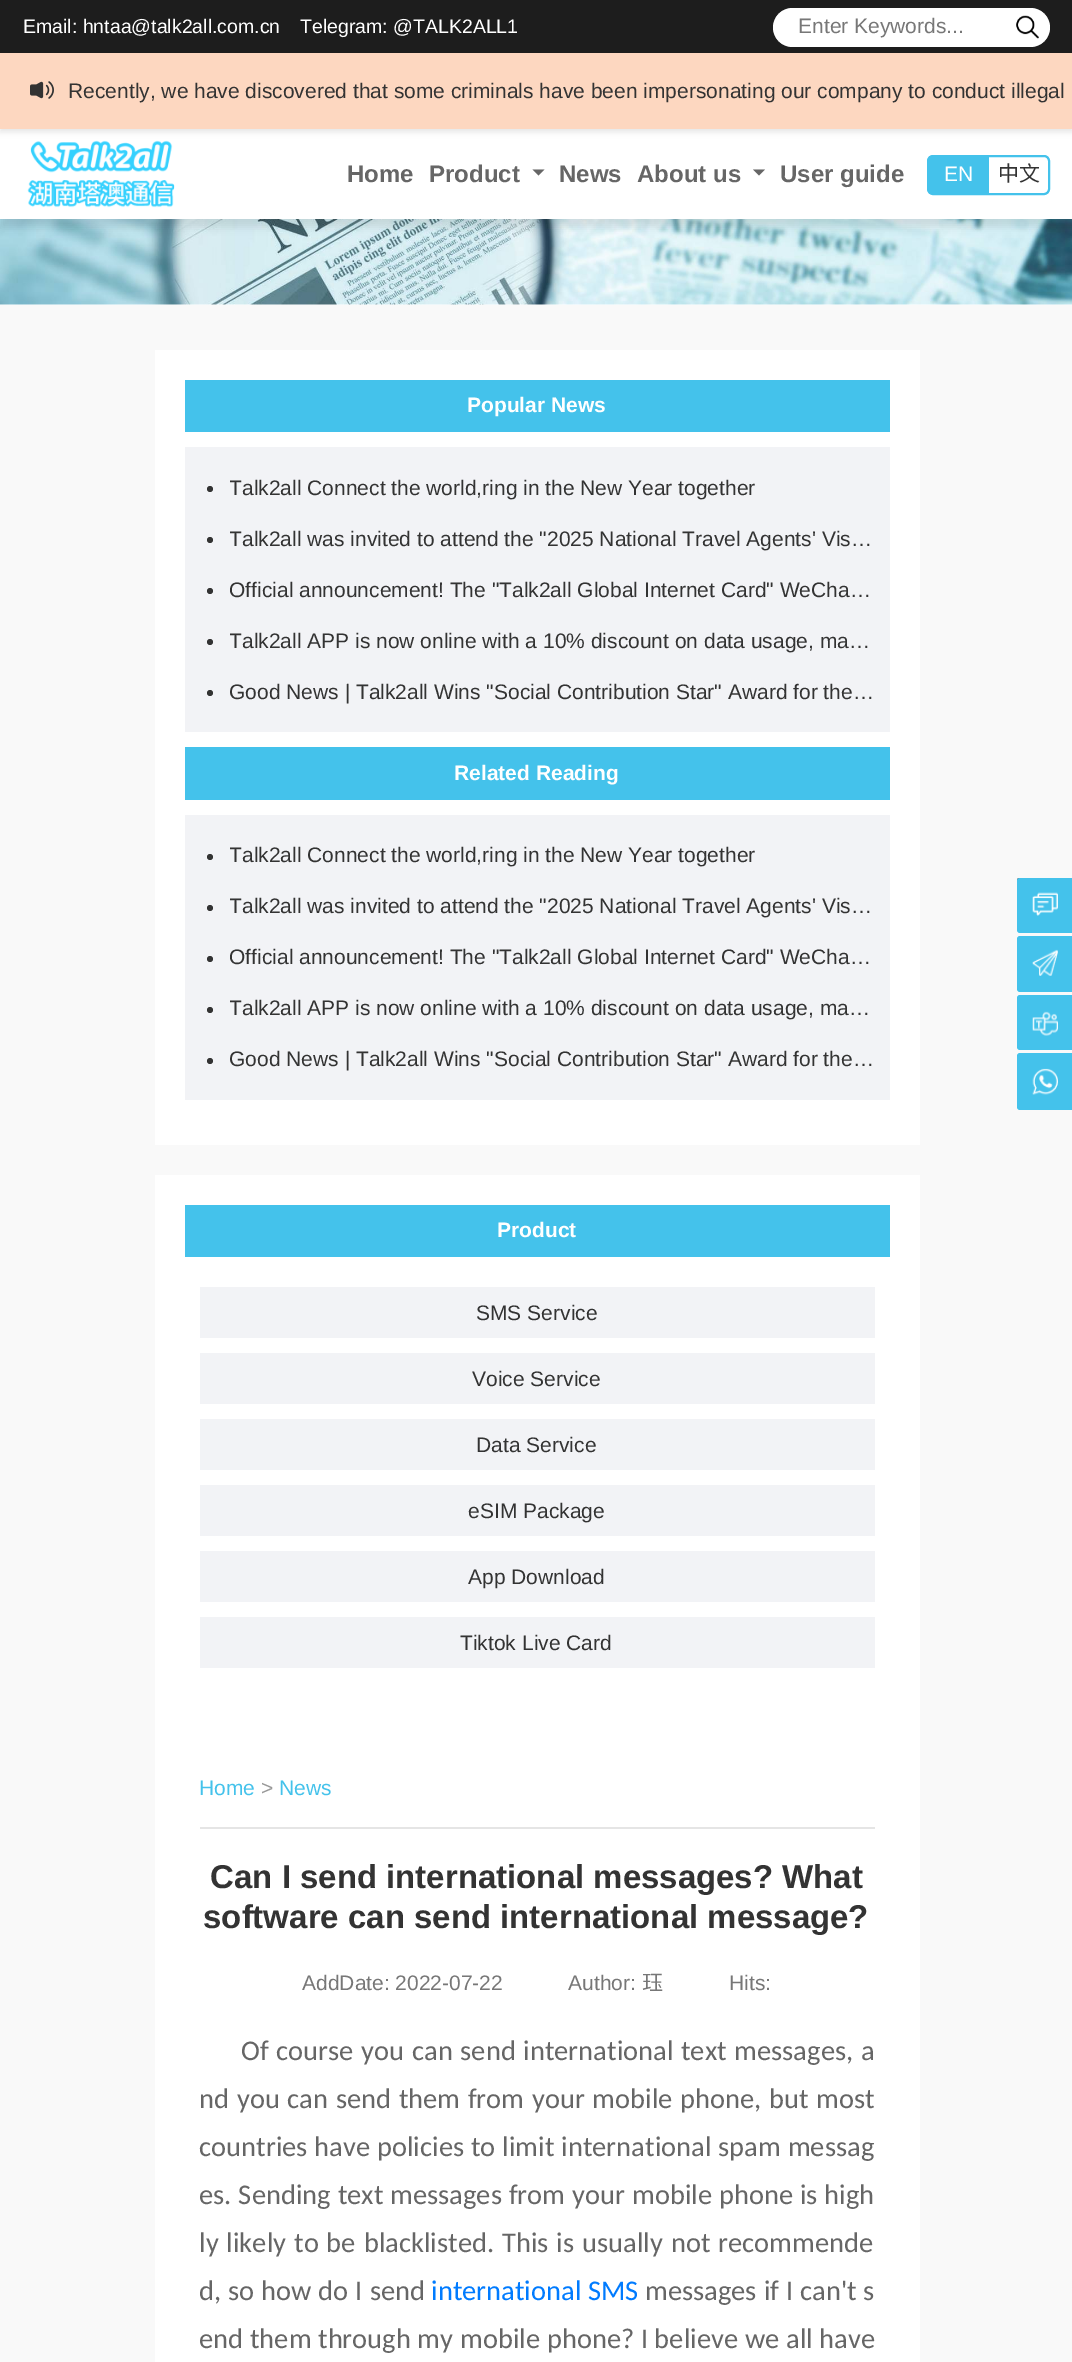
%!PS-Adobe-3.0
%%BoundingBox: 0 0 1072 2362
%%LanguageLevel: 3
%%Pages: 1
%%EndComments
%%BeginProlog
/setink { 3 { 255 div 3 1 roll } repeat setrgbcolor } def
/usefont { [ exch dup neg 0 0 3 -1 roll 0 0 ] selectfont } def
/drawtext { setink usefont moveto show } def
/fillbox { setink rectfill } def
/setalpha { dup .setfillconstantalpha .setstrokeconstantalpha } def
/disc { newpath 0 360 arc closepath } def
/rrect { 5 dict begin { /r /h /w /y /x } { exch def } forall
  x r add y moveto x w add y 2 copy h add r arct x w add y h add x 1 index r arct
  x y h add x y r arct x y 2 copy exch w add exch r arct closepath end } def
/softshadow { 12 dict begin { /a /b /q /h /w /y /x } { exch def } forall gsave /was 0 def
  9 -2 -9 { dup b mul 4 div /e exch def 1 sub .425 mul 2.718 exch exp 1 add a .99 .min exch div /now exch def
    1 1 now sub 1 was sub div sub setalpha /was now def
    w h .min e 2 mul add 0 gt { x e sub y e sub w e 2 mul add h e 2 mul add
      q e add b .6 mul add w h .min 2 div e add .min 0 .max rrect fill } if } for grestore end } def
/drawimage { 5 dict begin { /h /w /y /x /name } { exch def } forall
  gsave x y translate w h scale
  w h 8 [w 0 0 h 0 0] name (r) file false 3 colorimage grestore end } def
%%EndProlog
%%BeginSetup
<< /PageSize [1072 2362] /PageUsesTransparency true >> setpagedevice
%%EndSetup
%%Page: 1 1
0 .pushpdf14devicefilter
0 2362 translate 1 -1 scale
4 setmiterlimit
0 0 1072 2362 255 255 255 fillbox
(assets/img4.rgb) 0 219 1072 86 drawimage
0 0 0 setink
2 8 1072 219 0 4 0.1 softshadow
0 0 1072 53 29 29 29 fillbox
(Email: hntaa@talk2all.com.cn) 23 33 /LiberationSans-Regular 19.5 255 255 255 drawtext
(Telegram: @TALK2ALL1) 300 33 /LiberationSans-Regular 19.5 255 255 255 drawtext
0 129 1072 90 255 255 255 fillbox
(assets/img3.rgb) 27 140 148 68 drawimage
0 0 0 setink
0 56 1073 76 0 3 0.1 softshadow
255 255 255 setink
773 8 277 39 19.5 rrect fill
(Enter Keywords...) 798 33 /LiberationSans-Regular 21 119 119 119 drawtext
(assets/img1.rgb) 1016 15 23 24 drawimage
0 53 1072 76 253 215 192 fillbox
(assets/img2.rgb) 30 81 24 18 drawimage
(Recently, we have discovered that some criminals have been impersonating our company to conduct illegal) 68 98 /LiberationSans-Regular 21 51 51 51 drawtext
(Home) 347 182 /LiberationSans-Bold 24 102 102 102 drawtext
(Product) 429 182 /LiberationSans-Bold 24 102 102 102 drawtext
532.5 169.5 moveto 544.5 169.5 lineto 538.5 175.5 lineto closepath fill
(News) 559 182 /LiberationSans-Bold 24 102 102 102 drawtext
(About us) 637 182 /LiberationSans-Bold 24 102 102 102 drawtext
753 169.5 moveto 765 169.5 lineto 759 175.5 lineto closepath fill
(User guide) 780 182 /LiberationSans-Bold 24 102 102 102 drawtext
68 194 235 setink
2 setlinewidth
928 156 121 38 5 rrect stroke
929 156 60 38 68 194 235 fillbox
(EN) 944 181 /LiberationSans-Regular 21 255 255 255 drawtext
(中文) 998 181 /NotoSansCJKSC-Regular 21 51 51 51 drawtext
0 305 1072 2057 249 249 249 fillbox
155 350 765 795 255 255 255 fillbox
185 380 705 52 68 194 235 fillbox
(Popular News) 467 412 /LiberationSans-Bold 21 255 255 255 drawtext
185 447 705 285 242 243 246 fillbox
51 51 51 setink
210 489 3 disc fill
gsave
230 462 645 51 rectclip
(Talk2all Connect the world,ring in the New Year together) 229 495 /LiberationSans-Regular 21 51 51 51 drawtext
grestore
210 540 3 disc fill
gsave
230 513 645 51 rectclip
(Talk2all was invited to attend the "2025 National Travel Agents' Vis…) 229 546 /LiberationSans-Regular 21 51 51 51 drawtext
grestore
210 591 3 disc fill
gsave
230 564 645 51 rectclip
(Official announcement! The "Talk2all Global Internet Card" WeCha…) 229 597 /LiberationSans-Regular 21 51 51 51 drawtext
grestore
210 642 3 disc fill
gsave
230 615 645 51 rectclip
(Talk2all APP is now online with a 10% discount on data usage, ma…) 229 648 /LiberationSans-Regular 21 51 51 51 drawtext
grestore
210 693 3 disc fill
gsave
230 666 645 51 rectclip
(Good News | Talk2all Wins "Social Contribution Star" Award for the…) 229 699 /LiberationSans-Regular 21 51 51 51 drawtext
grestore
185 747 705 53 68 194 235 fillbox
(Related Reading) 454 780 /LiberationSans-Bold 21 255 255 255 drawtext
185 815 705 285 242 243 246 fillbox
51 51 51 setink
210 857 3 disc fill
gsave
230 830 645 51 rectclip
(Talk2all Connect the world,ring in the New Year together) 229 862 /LiberationSans-Regular 21 51 51 51 drawtext
grestore
210 908 3 disc fill
gsave
230 881 645 51 rectclip
(Talk2all was invited to attend the "2025 National Travel Agents' Vis…) 229 913 /LiberationSans-Regular 21 51 51 51 drawtext
grestore
210 959 3 disc fill
gsave
230 932 645 51 rectclip
(Official announcement! The "Talk2all Global Internet Card" WeCha…) 229 964 /LiberationSans-Regular 21 51 51 51 drawtext
grestore
210 1010 3 disc fill
gsave
230 983 645 51 rectclip
(Talk2all APP is now online with a 10% discount on data usage, ma…) 229 1015 /LiberationSans-Regular 21 51 51 51 drawtext
grestore
210 1061 3 disc fill
gsave
230 1034 645 51 rectclip
(Good News | Talk2all Wins "Social Contribution Star" Award for the…) 229 1066 /LiberationSans-Regular 21 51 51 51 drawtext
grestore
155 1175 765 1187 255 255 255 fillbox
185 1205 705 52 68 194 235 fillbox
(Product) 497 1237 /LiberationSans-Bold 21 255 255 255 drawtext
200 1287 675 51 242 243 246 fillbox
(SMS Service) 476 1320 /LiberationSans-Regular 21 51 51 51 drawtext
200 1353 675 51 242 243 246 fillbox
(Voice Service) 472 1386 /LiberationSans-Regular 21 51 51 51 drawtext
200 1419 675 51 242 243 246 fillbox
(Data Service) 476 1452 /LiberationSans-Regular 21 51 51 51 drawtext
200 1485 675 51 242 243 246 fillbox
(eSIM Package) 468 1518 /LiberationSans-Regular 21 51 51 51 drawtext
200 1551 675 51 242 243 246 fillbox
(App Download) 468 1584 /LiberationSans-Regular 21 51 51 51 drawtext
200 1617 675 51 242 243 246 fillbox
(Tiktok Live Card) 460 1650 /LiberationSans-Regular 21 51 51 51 drawtext
200 1827 675 2 229 229 229 fillbox
(Home) 199 1795 /LiberationSans-Regular 21 68 194 235 drawtext
(>) 261 1795 /LiberationSans-Regular 21 153 153 153 drawtext
(News) 279 1795 /LiberationSans-Regular 21 68 194 235 drawtext
(Can I send international messages? What) 210 1888 /LiberationSans-Bold 33 51 51 51 drawtext
(software can send international message?) 203 1928 /LiberationSans-Bold 33 51 51 51 drawtext
(AddDate: 2022-07-22) 302 1990 /LiberationSans-Regular 21 119 119 119 drawtext
(Author:) 568 1990 /LiberationSans-Regular 21 119 119 119 drawtext
(珏) 642 1990 /NotoSansCJKSC-Regular 21 119 119 119 drawtext
(Hits:) 729 1990 /LiberationSans-Regular 21 119 119 119 drawtext
/Carlito-Regular 28.5 usefont
102 102 102 setink
241 2060 moveto 1.25 0 32 (Of course you can send international text messages, a) widthshow
199 2108 moveto 1.25 0 32 (nd you can send them from your mobile phone, but most) widthshow
199 2156 moveto 0.5 0 32 (countries have policies to limit international spam messag) widthshow
199 2204 moveto 0.5 0 32 (es. Sending text messages from your mobile phone is high) widthshow
199 2252 moveto 1.5 0 32 (ly likely to be blacklisted. This is usually not recommende) widthshow
199 2300 moveto 0.5 0 32 (d, so how do I send) widthshow
(international SMS) 431 2300 /Carlito-Regular 28.5 0 123 255 drawtext
102 102 102 setink
645 2300 moveto 0.5 0 32 (messages if I can't s) widthshow
199 2348 moveto 0.25 0 32 (end them through my mobile phone? I believe we all have) widthshow
118 118 118 setink
1 setlinewidth
1017.5 878.5 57 27 1.5 rrect stroke
68 194 235 setink
1017 878 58 55 3 rrect fill
(assets/img5.rgb) 1032 892 26 24 drawimage
1017 936 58 56 3 rrect fill
(assets/img6.rgb) 1032 949 26 27 drawimage
1017 995 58 55 3 rrect fill
(assets/img7.rgb) 1032 1011 26 25 drawimage
1017 1053 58 57 3 rrect fill
(assets/img8.rgb) 1032 1068 26 27 drawimage
.poppdf14devicefilter showpage
%%EOF
